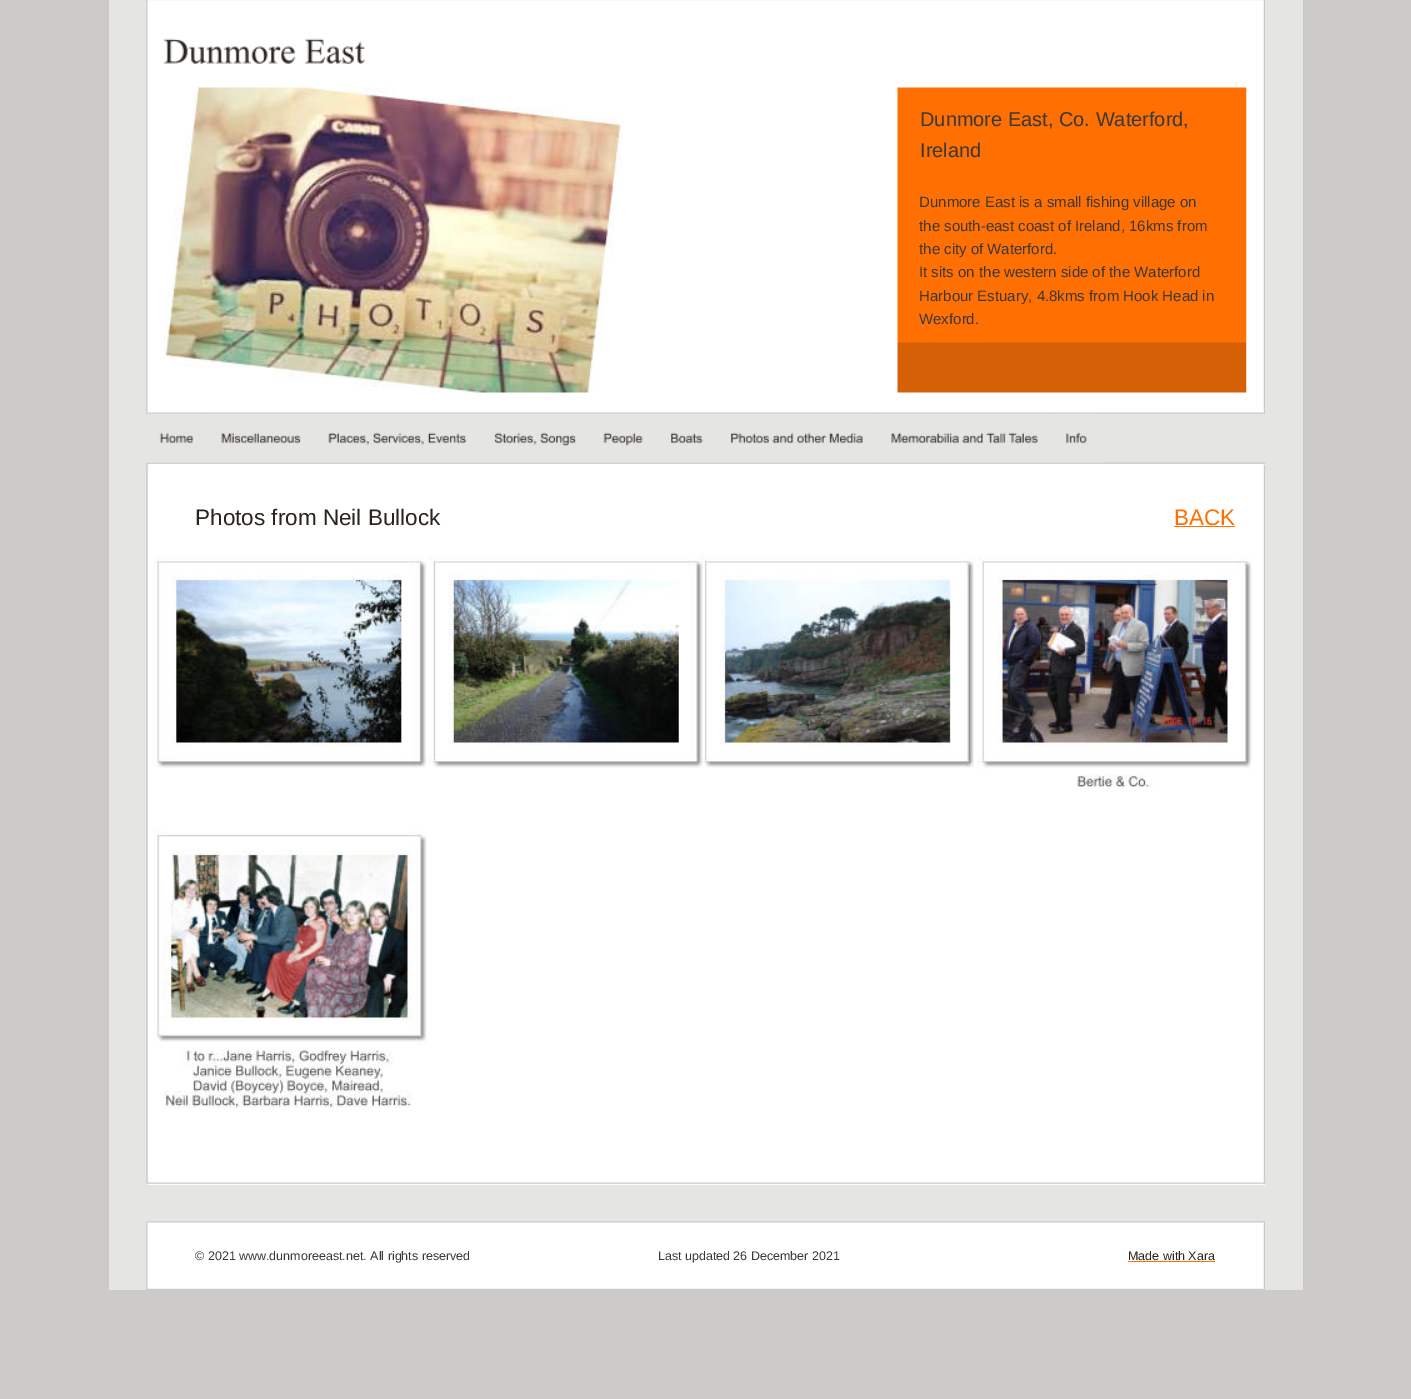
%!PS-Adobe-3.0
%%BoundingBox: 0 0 1411 1399
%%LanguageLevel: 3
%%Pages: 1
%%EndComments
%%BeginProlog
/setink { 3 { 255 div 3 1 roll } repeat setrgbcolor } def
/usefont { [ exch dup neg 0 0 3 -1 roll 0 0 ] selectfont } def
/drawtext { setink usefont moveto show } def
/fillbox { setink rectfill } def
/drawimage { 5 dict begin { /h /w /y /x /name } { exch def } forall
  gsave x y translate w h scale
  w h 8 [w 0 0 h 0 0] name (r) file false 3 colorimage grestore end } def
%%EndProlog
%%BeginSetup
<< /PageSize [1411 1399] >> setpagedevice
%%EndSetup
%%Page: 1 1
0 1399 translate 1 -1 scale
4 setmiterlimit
0 0 1411 1399 204 203 202 fillbox
109 0 1194 1290 229 229 227 fillbox
(assets/img1.rgb) 146 0 1119 414 drawimage
(assets/img2.rgb) 146 462 1120 2 drawimage
148 464 1117 721 255 255 255 fillbox
(assets/img5.rgb) 146 1182 1120 2 drawimage
(assets/img3.rgb) 146 464 2 719 drawimage
(assets/img4.rgb) 1263 464 2 720 drawimage
(assets/img6.rgb) 163 38 202 26 drawimage
(assets/img7.rgb) 164 87 459 306 drawimage
(assets/img8.rgb) 897 87 350 306 drawimage
(Dunmore East, Co. Waterford,) 920 126 /LiberationSans-Regular 20 57 57 57 drawtext
(Ireland) 920 157 /LiberationSans-Regular 20 57 57 57 drawtext
(Dunmore East is a small fishing village on) 919 207 /LiberationSans-Regular 15 57 57 57 drawtext
(the south-east coast of Ireland, 16kms from) 919 231 /LiberationSans-Regular 15 57 57 57 drawtext
(the city of Waterford.) 919 254 /LiberationSans-Regular 15 57 57 57 drawtext
(It sits on the western side of the Waterford) 919 277 /LiberationSans-Regular 15 57 57 57 drawtext
(Harbour Estuary, 4.8kms from Hook Head in) 919 301 /LiberationSans-Regular 15 57 57 57 drawtext
(Wexford.) 919 324 /LiberationSans-Regular 15 57 57 57 drawtext
(Photos from Neil Bullock) 195 525 /LiberationSans-Regular 22.5 42 36 30 drawtext
(BACK) 1174 525 /LiberationSans-Regular 22.5 255 111 1 drawtext
1174 526 61 1 255 111 1 fillbox
(assets/img9.rgb) 153 557 274 211 drawimage
(assets/img10.rgb) 429 555 271 213 drawimage
(assets/img11.rgb) 700 555 274 213 drawimage
(assets/img12.rgb) 977 555 275 233 drawimage
(assets/img13.rgb) 153 830 274 278 drawimage
(assets/img14.rgb) 146 1221 1119 69 drawimage
(© 2021 www.dunmoreeast.net. All rights reserved                                                      Last updated 26 December 2021) 195 1260 /LiberationSans-Regular 12.5 57 57 57 drawtext
(Made with Xara) 1128 1260 /LiberationSans-Regular 12.5 42 36 30 drawtext
1128 1261 87 1 255 111 1 fillbox
(assets/img15.rgb) 147 413 61 50 drawimage
(assets/img16.rgb) 208 413 107 50 drawimage
(assets/img17.rgb) 315 413 165 50 drawimage
(assets/img18.rgb) 480 413 110 50 drawimage
(assets/img19.rgb) 590 413 66 50 drawimage
(assets/img20.rgb) 656 413 60 50 drawimage
(assets/img21.rgb) 716 413 162 50 drawimage
(assets/img22.rgb) 878 413 175 50 drawimage
(assets/img23.rgb) 1053 413 48 50 drawimage
showpage
%%EOF
